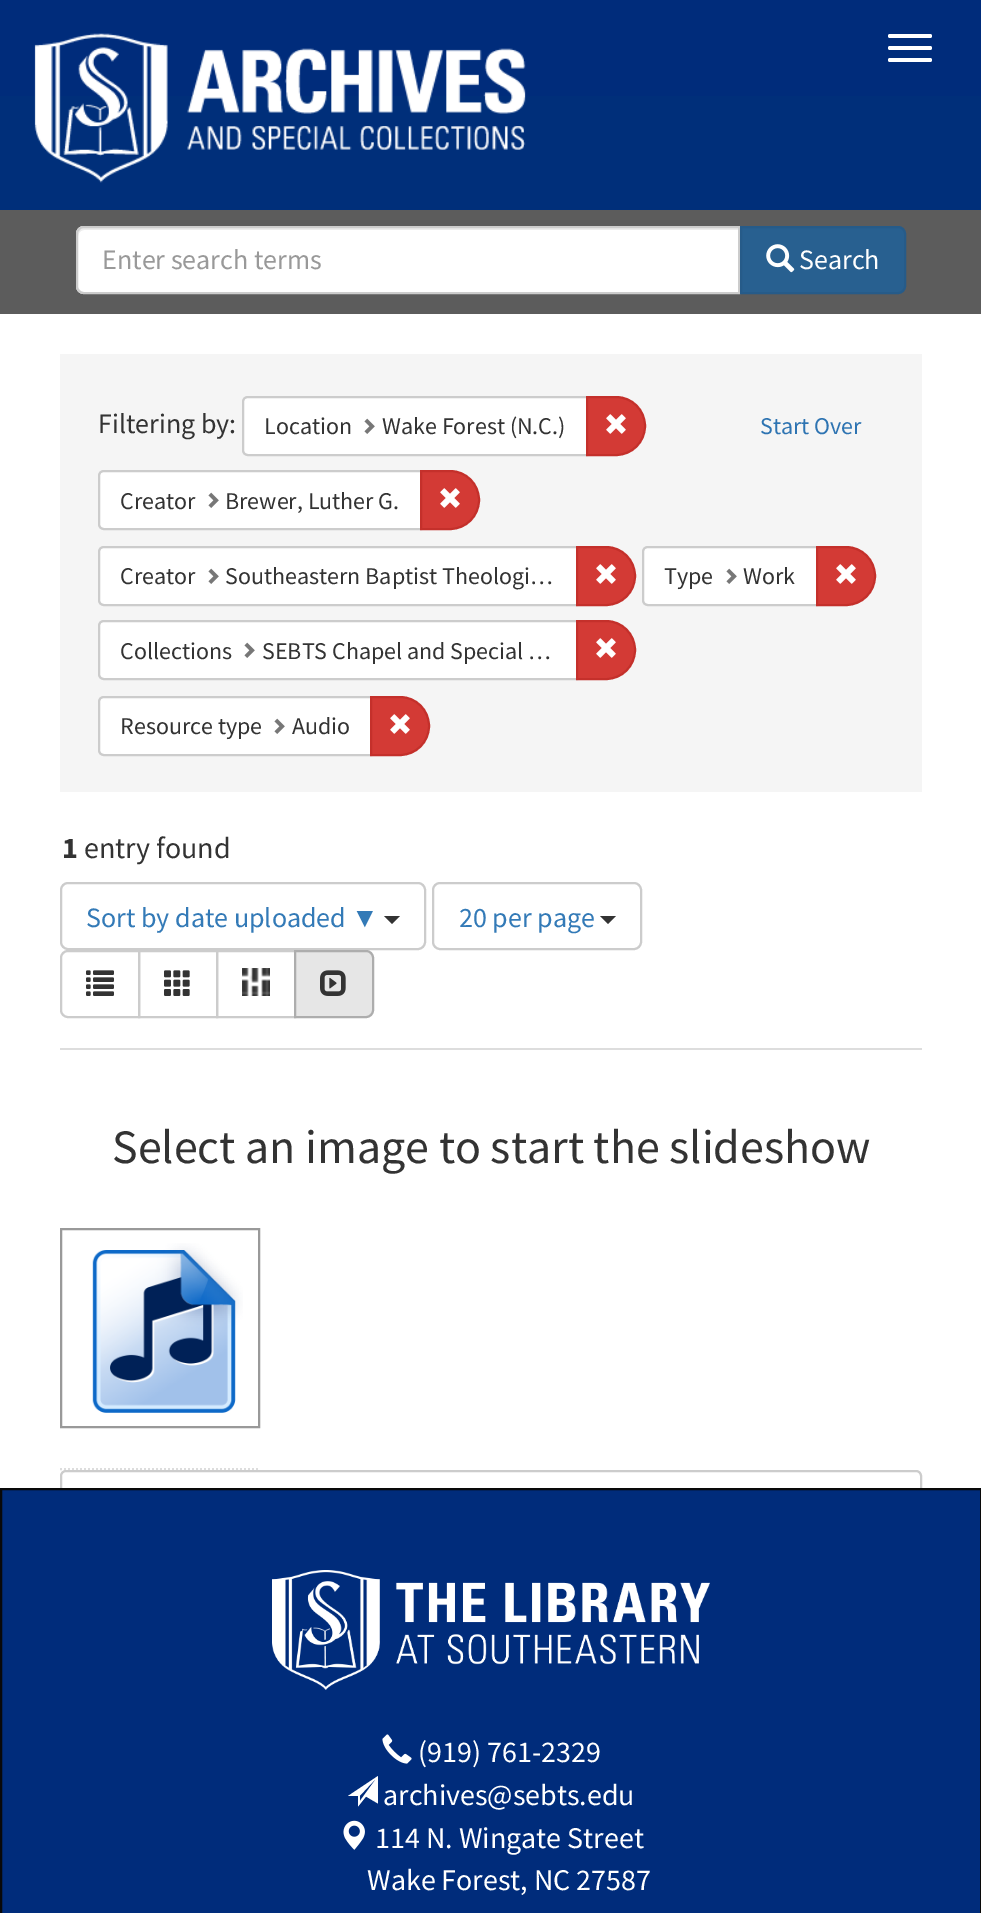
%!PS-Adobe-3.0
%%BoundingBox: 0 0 981 1913
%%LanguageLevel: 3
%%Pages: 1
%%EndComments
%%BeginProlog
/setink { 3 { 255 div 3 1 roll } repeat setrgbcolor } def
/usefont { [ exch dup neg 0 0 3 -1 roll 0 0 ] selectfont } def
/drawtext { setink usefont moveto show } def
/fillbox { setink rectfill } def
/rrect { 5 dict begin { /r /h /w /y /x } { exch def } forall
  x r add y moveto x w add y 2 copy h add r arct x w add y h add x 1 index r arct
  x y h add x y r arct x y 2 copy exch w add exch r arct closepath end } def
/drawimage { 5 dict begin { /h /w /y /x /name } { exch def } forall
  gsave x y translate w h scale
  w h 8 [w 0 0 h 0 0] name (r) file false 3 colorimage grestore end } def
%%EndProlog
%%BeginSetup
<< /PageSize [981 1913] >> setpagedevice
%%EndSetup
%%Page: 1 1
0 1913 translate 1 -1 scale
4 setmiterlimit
0 0 981 1913 255 255 255 fillbox
0 96 981 114 0 47 122 fillbox
0 0 981 96 0 44 123 fillbox
255 255 255 setink
888 34 44 4 2 rrect fill
888 46 44 4 2 rrect fill
888 58 44 4 2 rrect fill
(assets/img1.rgb) 34 33 492 150 drawimage
0 210 981 104 92 92 92 fillbox
255 255 255 setink
84 226 moveto 740 226 lineto 740 294 lineto 84 294 lineto 79.5 294 76 290.5 76 286 curveto 76 234 lineto 76 229.5 79.5 226 84 226 curveto closepath fill
236 236 236 setink
84 230 moveto 738 230 lineto 738 228 lineto 84 228 lineto 79 228 78 232 78 236 curveto 78 233 81 230 84 230 curveto closepath fill
204 204 204 setink
2 setlinewidth
84 227 moveto 739 227 lineto 739 293 lineto 84 293 lineto 80 293 77 290 77 286 curveto 77 234 lineto 77 230 80 227 84 227 curveto closepath stroke
(Enter search terms) 102 269 /SourceSansPro-Regular 28 153 153 153 drawtext
40 96 144 setink
741 227 moveto 898 227 lineto 902 227 905 230 905 234 curveto 905 286 lineto 905 290 902 293 898 293 curveto 741 293 lineto closepath gsave fill grestore
38 91 137 setink
stroke
(assets/img2.rgb) 766 244 29 29 drawimage
(Search) 799 269 /SourceSansPro-Regular 28 255 255 255 drawtext
60 354 862 438 245 245 245 fillbox
(Filtering by:) 98 433 /SourceSansPro-Regular 28 51 51 51 drawtext
255 255 255 setink
248 397 moveto 587 397 lineto 587 455 lineto 248 455 lineto 245 455 243 453 243 450 curveto 243 402 lineto 243 399 245 397 248 397 curveto closepath gsave fill grestore
204 204 204 setink
stroke
(Location) 264 434 /SourceSansPro-Regular 24 51 51 51 drawtext
(assets/img3.rgb) 364 418 11 16 drawimage
(Wake Forest \(N.C.\)) 382 434 /SourceSansPro-Regular 24 51 51 51 drawtext
211 58 53 setink
587 397 moveto 616 397 lineto 632 397 645 410 645 426 curveto 645 442 632 455 616 455 curveto 587 455 lineto closepath gsave fill grestore
196 48 43 setink
stroke
(assets/img4.rgb) 606 414 20 20 drawimage
(Start Over) 760 434 /SourceSansPro-Regular 24 46 116 178 drawtext
255 255 255 setink
104 471 moveto 421 471 lineto 421 529 lineto 104 529 lineto 101 529 99 527 99 524 curveto 99 476 lineto 99 473 101 471 104 471 curveto closepath gsave fill grestore
204 204 204 setink
stroke
(Creator) 120 509 /SourceSansPro-Regular 24 51 51 51 drawtext
(assets/img3.rgb) 208 492 11 16 drawimage
(Brewer, Luther G.) 225 509 /SourceSansPro-Regular 24 51 51 51 drawtext
211 58 53 setink
421 471 moveto 450 471 lineto 466 471 479 484 479 500 curveto 479 516 466 529 450 529 curveto 421 529 lineto closepath gsave fill grestore
196 48 43 setink
stroke
(assets/img4.rgb) 440 488 20 20 drawimage
255 255 255 setink
104 547 moveto 577 547 lineto 577 605 lineto 104 605 lineto 101 605 99 603 99 600 curveto 99 552 lineto 99 549 101 547 104 547 curveto closepath gsave fill grestore
204 204 204 setink
stroke
(Creator) 120 584 /SourceSansPro-Regular 24 51 51 51 drawtext
(assets/img3.rgb) 208 568 11 16 drawimage
(Southeastern Baptist Theologi…) 225 584 /SourceSansPro-Regular 24 51 51 51 drawtext
211 58 53 setink
577 547 moveto 606 547 lineto 622 547 635 560 635 576 curveto 635 592 622 605 606 605 curveto 577 605 lineto closepath gsave fill grestore
196 48 43 setink
stroke
(assets/img4.rgb) 596 564 20 20 drawimage
255 255 255 setink
648 547 moveto 817 547 lineto 817 605 lineto 648 605 lineto 645 605 643 603 643 600 curveto 643 552 lineto 643 549 645 547 648 547 curveto closepath gsave fill grestore
204 204 204 setink
stroke
(Type) 664 584 /SourceSansPro-Regular 24 51 51 51 drawtext
(assets/img3.rgb) 726 568 11 16 drawimage
(Work) 743 584 /SourceSansPro-Regular 24 51 51 51 drawtext
211 58 53 setink
817 547 moveto 846 547 lineto 862 547 875 560 875 576 curveto 875 592 862 605 846 605 curveto 817 605 lineto closepath gsave fill grestore
196 48 43 setink
stroke
(assets/img4.rgb) 836 564 20 20 drawimage
255 255 255 setink
104 621 moveto 577 621 lineto 577 679 lineto 104 679 lineto 101 679 99 677 99 674 curveto 99 626 lineto 99 623 101 621 104 621 curveto closepath gsave fill grestore
204 204 204 setink
stroke
(Collections) 120 659 /SourceSansPro-Regular 24 51 51 51 drawtext
(assets/img3.rgb) 244 642 11 16 drawimage
(SEBTS Chapel and Special …) 262 659 /SourceSansPro-Regular 24 51 51 51 drawtext
211 58 53 setink
577 621 moveto 606 621 lineto 622 621 635 634 635 650 curveto 635 666 622 679 606 679 curveto 577 679 lineto closepath gsave fill grestore
196 48 43 setink
stroke
(assets/img4.rgb) 596 638 20 20 drawimage
255 255 255 setink
104 697 moveto 371 697 lineto 371 755 lineto 104 755 lineto 101 755 99 753 99 750 curveto 99 702 lineto 99 699 101 697 104 697 curveto closepath gsave fill grestore
204 204 204 setink
stroke
(Resource type) 120 734 /SourceSansPro-Regular 24 51 51 51 drawtext
(assets/img3.rgb) 274 718 11 16 drawimage
(Audio) 292 734 /SourceSansPro-Regular 24 51 51 51 drawtext
211 58 53 setink
371 697 moveto 400 697 lineto 416 697 429 710 429 726 curveto 429 742 416 755 400 755 curveto 371 755 lineto closepath gsave fill grestore
196 48 43 setink
stroke
(assets/img4.rgb) 390 714 20 20 drawimage
60 1048 862 2 221 221 221 fillbox
(1) 62 858 /SourceSansPro-Bold 30 51 51 51 drawtext
(entry found) 84 858 /SourceSansPro-Regular 30 51 51 51 drawtext
204 204 204 setink
61 883 364 66 7 rrect stroke
(Sort by date uploaded) 86 927 /SourceSansPro-Regular 28 51 122 183 drawtext
(▼) 351 927 /LiberationSans-Regular 28 51 122 183 drawtext
51 51 51 setink
384 916 moveto 400 916 lineto 392 924 lineto closepath fill
204 204 204 setink
433 883 208 66 7 rrect stroke
(20 per page) 459 927 /SourceSansPro-Regular 28 51 122 183 drawtext
51 51 51 setink
600 916 moveto 616 916 lineto 608 924 lineto closepath fill
204 204 204 setink
68 951 moveto 139 951 lineto 139 1017 lineto 68 1017 lineto 64 1017 61 1014 61 1010 curveto 61 958 lineto 61 954 64 951 68 951 curveto closepath stroke
(assets/img5.rgb) 86 970 28 26 drawimage
139 951 78 66 rectstroke
(assets/img6.rgb) 164 970 26 26 drawimage
217 951 78 66 rectstroke
(assets/img7.rgb) 242 968 28 28 drawimage
230 230 230 setink
295 951 moveto 366 951 lineto 370 951 373 954 373 958 curveto 373 1010 lineto 373 1014 370 1017 366 1017 curveto 295 1017 lineto closepath gsave fill grestore
173 173 173 setink
stroke
(assets/img8.rgb) 320 970 26 26 drawimage
(Select an image to start the slideshow) 112 1163 /SourceSansPro-Regular 48 51 51 51 drawtext
221 221 221 setink
[2 2] 0 setdash
60 1469 moveto 260 1469 lineto stroke
153 153 153 setink
[] 0 setdash
61 1229 198 198 rectstroke
(assets/img9.rgb) 92 1243 151 170 drawimage
204 204 204 setink
61 1471 860 122 5 rrect stroke
0 44 123 setink
1 1489 moveto 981 1489 lineto 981 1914 lineto 1 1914 lineto closepath gsave fill grestore
9 9 9 setink
stroke
(assets/img10.rgb) 272 1570 438 120 drawimage
(assets/img11.rgb) 382 1734 30 30 drawimage
(\(919\) 761-2329) 418 1762 /SourceSansPro-Regular 30 255 255 255 drawtext
378 1803.5 moveto 366 1796.5 lineto 358 1806.5 lineto 358 1796 lineto 348 1796 lineto 378 1776 lineto closepath 360 1795.5 moveto 360 1801 lineto 377 1777.5 lineto closepath fill
(archives@sebts.edu) 383 1805 /SourceSansPro-Regular 30 255 255 255 drawtext
(assets/img12.rgb) 343 1820 22 30 drawimage
(114 N. Wingate Street) 375 1848 /SourceSansPro-Regular 30 255 255 255 drawtext
(Wake Forest, NC 27587) 367 1890 /SourceSansPro-Regular 30 255 255 255 drawtext
showpage
%%EOF
